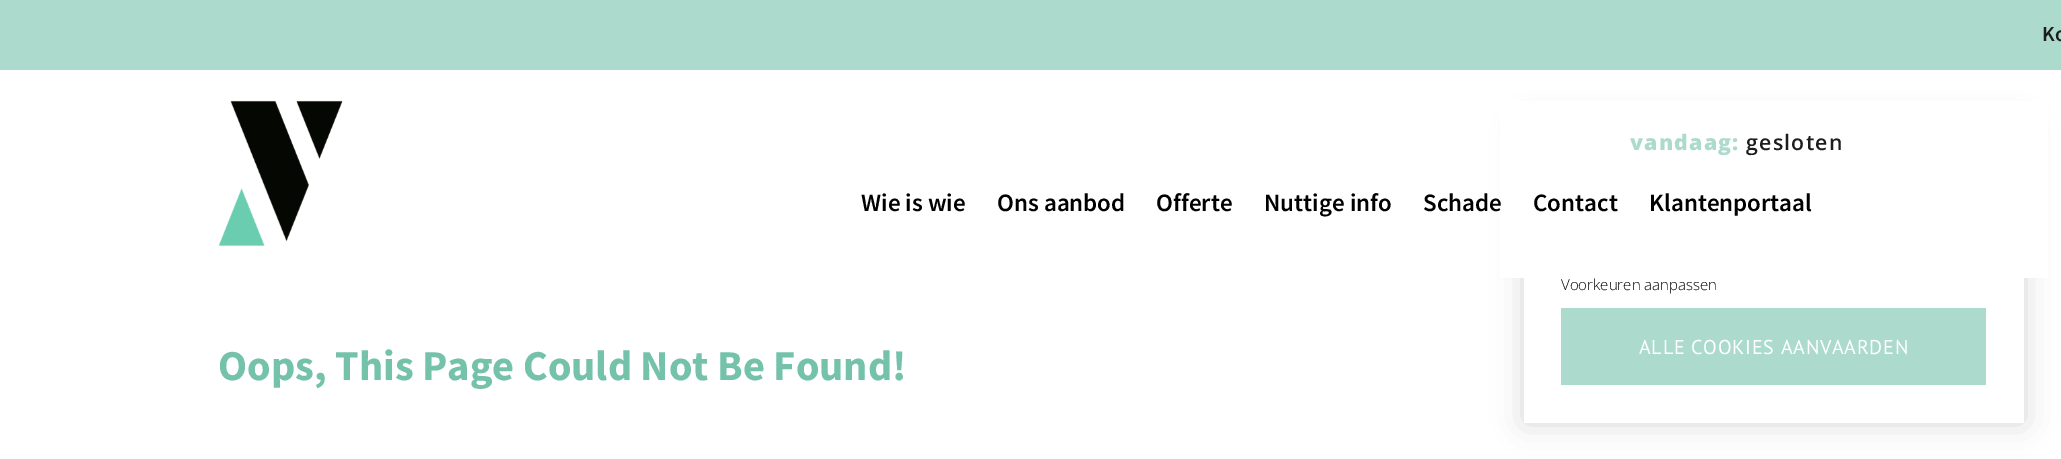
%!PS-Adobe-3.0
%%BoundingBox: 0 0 2061 459
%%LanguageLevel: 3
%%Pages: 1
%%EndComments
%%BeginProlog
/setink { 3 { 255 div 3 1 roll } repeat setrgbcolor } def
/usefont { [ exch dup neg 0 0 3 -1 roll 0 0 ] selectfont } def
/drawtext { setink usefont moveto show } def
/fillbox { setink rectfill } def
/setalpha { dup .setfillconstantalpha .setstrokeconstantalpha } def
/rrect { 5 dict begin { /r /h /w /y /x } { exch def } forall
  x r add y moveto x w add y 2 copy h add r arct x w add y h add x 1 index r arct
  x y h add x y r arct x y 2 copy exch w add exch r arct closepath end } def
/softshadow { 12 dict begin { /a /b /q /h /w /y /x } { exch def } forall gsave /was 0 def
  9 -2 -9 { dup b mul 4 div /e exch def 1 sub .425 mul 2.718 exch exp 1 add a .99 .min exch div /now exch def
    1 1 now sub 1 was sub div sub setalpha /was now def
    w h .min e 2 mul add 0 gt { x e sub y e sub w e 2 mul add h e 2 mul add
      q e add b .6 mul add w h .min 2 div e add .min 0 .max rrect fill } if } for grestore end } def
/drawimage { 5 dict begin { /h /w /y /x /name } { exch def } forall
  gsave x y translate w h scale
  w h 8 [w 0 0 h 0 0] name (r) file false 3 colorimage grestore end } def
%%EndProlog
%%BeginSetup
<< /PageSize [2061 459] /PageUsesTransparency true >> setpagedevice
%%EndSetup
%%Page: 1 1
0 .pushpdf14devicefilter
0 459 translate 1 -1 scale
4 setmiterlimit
0 0 2061 459 255 255 255 fillbox
0 0 2061 70 172 218 205 fillbox
(Ko) 2042 41 /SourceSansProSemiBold-SemiBold 21.25 29 30 28 drawtext
0 0 0 setink
1524 125 500 298 0 15.5 0.16 softshadow
1500 101 548 177 255 255 255 fillbox
(assets/img1.rgb) 218 100 125 147 drawimage
/OpenSans-ExtraBold 21.25 usefont
172 218 205 setink
1630 150 moveto 1.25 0 (vandaag:) ashow
/OpenSans-SemiBold 21.25 usefont
29 30 28 setink
1746 150 moveto 1.25 0 (gesloten) ashow
(Wie is wie) 861 211 /SourceSansProSemiBold-SemiBold 25 0 0 0 drawtext
(Ons aanbod) 997 211 /SourceSansProSemiBold-SemiBold 25 0 0 0 drawtext
(Offerte) 1156 211 /SourceSansProSemiBold-SemiBold 25 0 0 0 drawtext
(Nuttige info) 1264 211 /SourceSansProSemiBold-SemiBold 25 0 0 0 drawtext
(Schade) 1423 211 /SourceSansProSemiBold-SemiBold 25 0 0 0 drawtext
(Contact) 1533 211 /SourceSansProSemiBold-SemiBold 25 0 0 0 drawtext
(Klantenportaal) 1649 211 /SourceSansProSemiBold-SemiBold 25 0 0 0 drawtext
(Oops, This Page Could Not Be Found!) 218 380 /SourceSansPro-Bold 42.5 117 194 171 drawtext
1524 278 500 145 255 255 255 fillbox
(Voorkeuren aanpassen) 1561 290 /OpenSans-Light 15 0 0 0 drawtext
1561 308 425 77 172 218 205 fillbox
/PTSans-Regular 20 usefont
255 255 255 setink
1639 354 moveto 0.75 0 (ALLE COOKIES AANVAARDEN) ashow
.poppdf14devicefilter showpage
%%EOF
